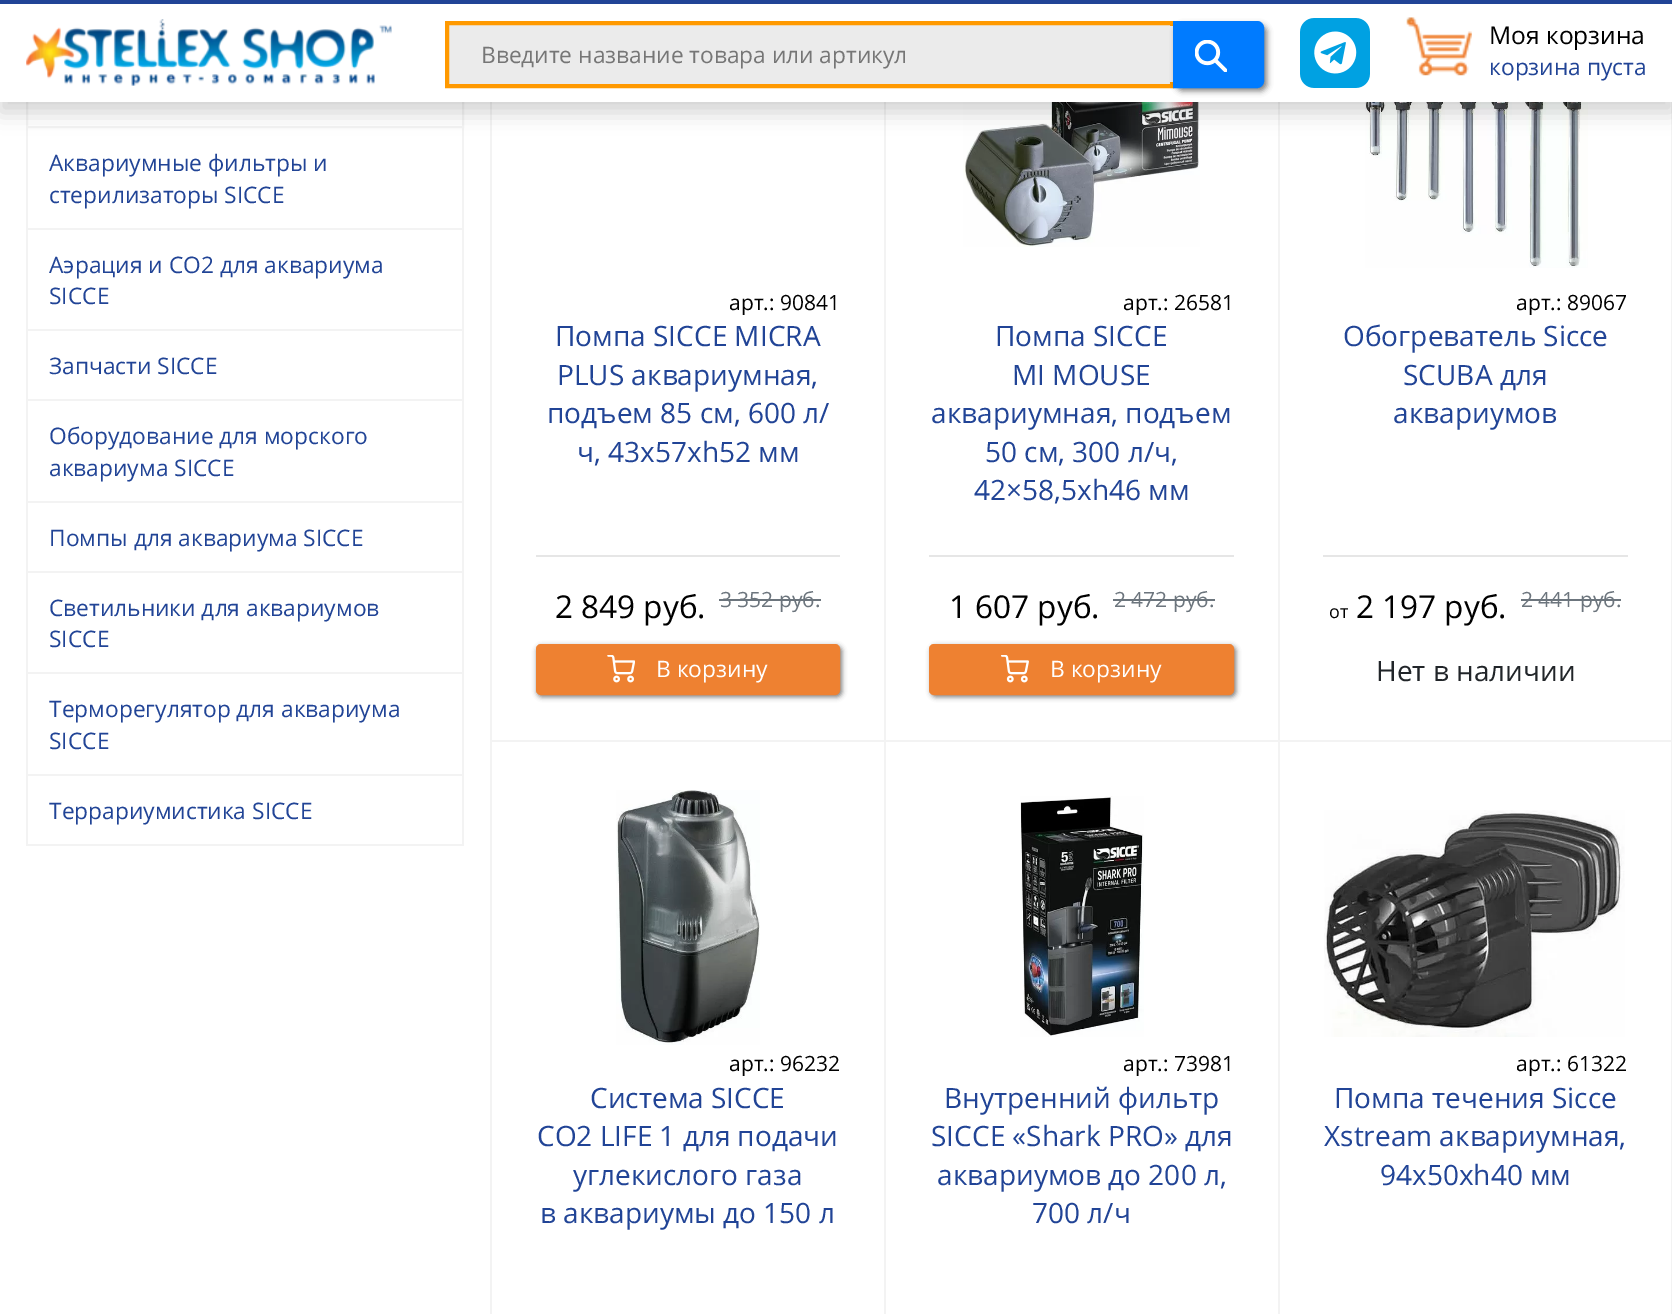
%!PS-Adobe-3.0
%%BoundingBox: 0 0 1672 1314
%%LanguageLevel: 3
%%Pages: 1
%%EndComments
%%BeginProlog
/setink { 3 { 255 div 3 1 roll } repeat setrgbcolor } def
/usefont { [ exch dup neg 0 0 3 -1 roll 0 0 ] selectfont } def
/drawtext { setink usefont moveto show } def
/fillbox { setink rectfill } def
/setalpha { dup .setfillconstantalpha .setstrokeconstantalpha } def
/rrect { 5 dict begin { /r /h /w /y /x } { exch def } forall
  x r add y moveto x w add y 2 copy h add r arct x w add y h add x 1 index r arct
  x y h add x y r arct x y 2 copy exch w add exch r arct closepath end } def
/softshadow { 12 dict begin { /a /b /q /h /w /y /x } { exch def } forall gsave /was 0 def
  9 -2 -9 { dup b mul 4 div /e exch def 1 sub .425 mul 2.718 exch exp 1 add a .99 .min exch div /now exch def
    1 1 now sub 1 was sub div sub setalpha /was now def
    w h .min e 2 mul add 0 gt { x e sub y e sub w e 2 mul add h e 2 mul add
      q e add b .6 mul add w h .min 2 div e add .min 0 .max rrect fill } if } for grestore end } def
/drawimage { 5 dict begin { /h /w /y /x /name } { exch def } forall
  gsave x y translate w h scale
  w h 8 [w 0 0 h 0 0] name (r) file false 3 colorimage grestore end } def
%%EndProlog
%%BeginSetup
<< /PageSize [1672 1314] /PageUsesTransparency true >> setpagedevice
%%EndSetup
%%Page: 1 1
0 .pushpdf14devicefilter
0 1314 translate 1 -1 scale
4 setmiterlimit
0 0 1672 1314 255 255 255 fillbox
243 243 243 setink
2 setlinewidth
27 57 436 70 rectstroke
462 128 2 101 243 243 243 fillbox
26 228 438 2 243 243 243 fillbox
26 128 2 101 243 243 243 fillbox
490 102 2 1212 243 243 243 fillbox
884 102 2 1212 243 243 243 fillbox
1278 102 2 1212 243 243 243 fillbox
(assets/img6.rgb) 963 102 237 145 drawimage
1671 102 1 1212 243 243 243 fillbox
(assets/img8.rgb) 1365 102 223 166 drawimage
0 0 0 setink
0 11 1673 101 0 10.5 0.18 softshadow
0 4 1672 98 255 255 255 fillbox
0 0 1672 4 33 68 150 fillbox
(assets/img1.rgb) 26 19 366 67 drawimage
235 235 235 setink
447 23 moveto 1172 23 lineto 1172 86 lineto 447 86 lineto closepath gsave fill grestore
255 153 0 setink
4 setlinewidth
stroke
1170 26 3 56 235 235 235 fillbox
0 0 0 setink
1176 25 91 66 7 3 0.5 softshadow
0 123 255 setink
1174 22 moveto 1257 22 lineto 1260.5 22 1263 24.5 1263 28 curveto 1263 81 lineto 1263 84.5 1260.5 87 1257 87 curveto 1174 87 lineto closepath gsave fill grestore
2 setlinewidth
stroke
(assets/img2.rgb) 1195 40 32 32 drawimage
(Введите название товара или артикул) 481 63 /OpenSans-Regular 22.75 118 118 118 drawtext
(assets/img3.rgb) 1300 18 70 70 drawimage
(assets/img4.rgb) 1406 17 66 59 drawimage
(Моя корзина) 1489 44 /OpenSans-Regular 24.5 0 0 0 drawtext
(корзина пуста) 1489 75 /OpenSans-Regular 22.75 33 68 150 drawtext
(Аквариумные фильтры и) 49 171 /OpenSans-Regular 22.75 33 68 150 drawtext
(стерилизаторы SICCE) 49 203 /OpenSans-Regular 22.75 33 68 150 drawtext
462 229 2 273 243 243 243 fillbox
26 329 438 2 243 243 243 fillbox
26 229 2 102 243 243 243 fillbox
(Аэрация и СО2 для аквариума) 49 273 /OpenSans-Regular 22.75 33 68 150 drawtext
(SICCE) 49 304 /OpenSans-Regular 22.75 33 68 150 drawtext
26 399 438 2 243 243 243 fillbox
26 331 2 70 243 243 243 fillbox
(Запчасти SICCE) 49 374 /OpenSans-Regular 22.75 33 68 150 drawtext
26 501 438 2 243 243 243 fillbox
26 401 2 101 243 243 243 fillbox
(Оборудование для морского) 49 444 /OpenSans-Regular 22.75 33 68 150 drawtext
(аквариума SICCE) 49 476 /OpenSans-Regular 22.75 33 68 150 drawtext
462 502 2 70 243 243 243 fillbox
26 571 438 2 243 243 243 fillbox
26 502 2 70 243 243 243 fillbox
(Помпы для аквариума SICCE) 49 546 /OpenSans-Regular 22.75 33 68 150 drawtext
462 572 2 203 243 243 243 fillbox
26 672 438 2 243 243 243 fillbox
26 572 2 102 243 243 243 fillbox
(Светильники для аквариумов) 49 616 /OpenSans-Regular 22.75 33 68 150 drawtext
(SICCE) 49 647 /OpenSans-Regular 22.75 33 68 150 drawtext
26 774 438 2 243 243 243 fillbox
26 674 2 101 243 243 243 fillbox
(Терморегулятор для аквариума) 49 717 /OpenSans-Regular 22.75 33 68 150 drawtext
(SICCE) 49 749 /OpenSans-Regular 22.75 33 68 150 drawtext
462 775 2 70 243 243 243 fillbox
26 844 438 2 243 243 243 fillbox
26 775 2 70 243 243 243 fillbox
(Террариумистика SICCE) 49 819 /OpenSans-Regular 22.75 33 68 150 drawtext
492 740 394 2 243 243 243 fillbox
(арт.: 90841) 729 310 /OpenSans-Regular 21 0 0 0 drawtext
(Помпа SICCE MICRA) 555 346 /OpenSans-Regular 28 33 68 150 drawtext
(PLUS аквариумная,) 557 385 /OpenSans-Regular 28 33 68 150 drawtext
(подъем 85 см, 600 л/) 547 423 /OpenSans-Regular 28 33 68 150 drawtext
(ч, 43х57хh52 мм) 577 462 /OpenSans-Regular 28 33 68 150 drawtext
536 555 304 2 230 230 230 fillbox
(2 849 руб.) 555 618 /OpenSans-Regular 31.5 0 0 0 drawtext
(3 352 руб.) 720 607 /OpenSans-Regular 21 108 117 125 drawtext
719 599 102 2 108 117 125 fillbox
0 0 0 setink
537 646 305 51 5 2.5 0.5 softshadow
238 129 49 setink
537 645 302 49 4 rrect gsave fill grestore
stroke
(assets/img5.rgb) 607 655 28 28 drawimage
(В корзину) 656 677 /OpenSans-Regular 22.75 255 255 255 drawtext
886 740 393 2 243 243 243 fillbox
(арт.: 26581) 1123 310 /OpenSans-Regular 21 0 0 0 drawtext
(Помпа SICCE) 995 346 /OpenSans-Regular 28 33 68 150 drawtext
(MI MOUSE) 1012 385 /OpenSans-Regular 28 33 68 150 drawtext
(аквариумная, подъем) 931 423 /OpenSans-Regular 28 33 68 150 drawtext
(50 см, 300 л/ч,) 985 462 /OpenSans-Regular 28 33 68 150 drawtext
(42×58,5хh46 мм) 974 500 /OpenSans-Regular 28 33 68 150 drawtext
929 555 305 2 230 230 230 fillbox
(1 607 руб.) 949 618 /OpenSans-Regular 31.5 0 0 0 drawtext
(2 472 руб.) 1114 607 /OpenSans-Regular 21 108 117 125 drawtext
1113 599 102 2 108 117 125 fillbox
0 0 0 setink
931 646 305 51 5 2.5 0.5 softshadow
238 129 49 setink
930 645 303 49 4 rrect gsave fill grestore
stroke
(assets/img7.rgb) 1001 655 28 28 drawimage
(В корзину) 1050 677 /OpenSans-Regular 22.75 255 255 255 drawtext
1279 740 393 2 243 243 243 fillbox
(арт.: 89067) 1516 310 /OpenSans-Regular 21 0 0 0 drawtext
(Обогреватель Sicce) 1343 346 /OpenSans-Regular 28 33 68 150 drawtext
(SCUBA для) 1403 385 /OpenSans-Regular 28 33 68 150 drawtext
(аквариумов) 1393 423 /OpenSans-Regular 28 33 68 150 drawtext
1323 555 305 2 230 230 230 fillbox
(от) 1329 618 /OpenSans-Regular 18 0 0 0 drawtext
(2 197 руб.) 1356 618 /OpenSans-Regular 31.5 0 0 0 drawtext
(2 441 руб.) 1521 607 /OpenSans-Regular 21 108 117 125 drawtext
1521 599 100 2 108 117 125 fillbox
(Нет в наличии) 1376 681 /OpenSans-Regular 28 33 37 41 drawtext
(assets/img9.rgb) 616 790 144 255 drawimage
(арт.: 96232) 729 1071 /OpenSans-Regular 21 0 0 0 drawtext
(Система SICCE) 590 1108 /OpenSans-Regular 28 33 68 150 drawtext
(CO2 LIFE 1 для подачи) 537 1146 /OpenSans-Regular 28 33 68 150 drawtext
(углекислого газа) 573 1185 /OpenSans-Regular 28 33 68 150 drawtext
(в аквариумы до 150 л) 540 1223 /OpenSans-Regular 28 33 68 150 drawtext
(assets/img10.rgb) 1020 796 124 241 drawimage
(арт.: 73981) 1123 1071 /OpenSans-Regular 21 0 0 0 drawtext
(Внутренний фильтр) 944 1108 /OpenSans-Regular 28 33 68 150 drawtext
(SICCE «Shark PRO» для) 931 1146 /OpenSans-Regular 28 33 68 150 drawtext
(аквариумов до 200 л,) 937 1185 /OpenSans-Regular 28 33 68 150 drawtext
(700 л/ч) 1032 1223 /OpenSans-Regular 28 33 68 150 drawtext
(assets/img11.rgb) 1324 810 301 227 drawimage
(арт.: 61322) 1516 1071 /OpenSans-Regular 21 0 0 0 drawtext
(Помпа течения Sicce) 1334 1108 /OpenSans-Regular 28 33 68 150 drawtext
(Xstream аквариумная,) 1324 1146 /OpenSans-Regular 28 33 68 150 drawtext
(94х50хh40 мм) 1380 1185 /OpenSans-Regular 28 33 68 150 drawtext
.poppdf14devicefilter showpage
%%EOF
